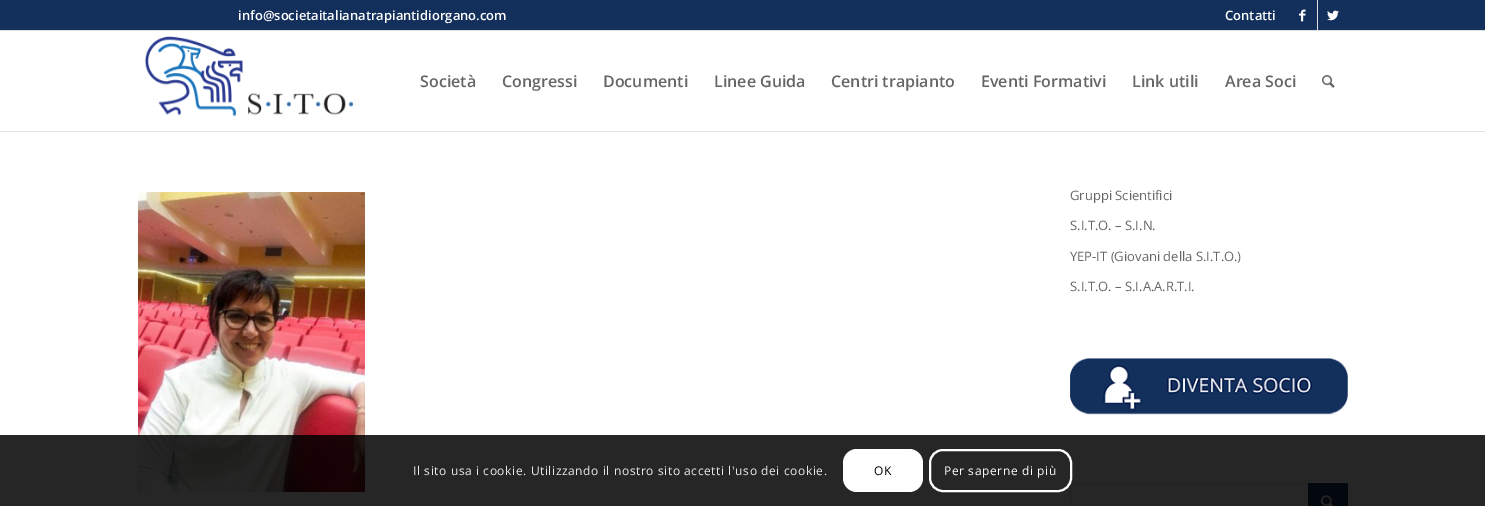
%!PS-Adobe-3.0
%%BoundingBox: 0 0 1485 506
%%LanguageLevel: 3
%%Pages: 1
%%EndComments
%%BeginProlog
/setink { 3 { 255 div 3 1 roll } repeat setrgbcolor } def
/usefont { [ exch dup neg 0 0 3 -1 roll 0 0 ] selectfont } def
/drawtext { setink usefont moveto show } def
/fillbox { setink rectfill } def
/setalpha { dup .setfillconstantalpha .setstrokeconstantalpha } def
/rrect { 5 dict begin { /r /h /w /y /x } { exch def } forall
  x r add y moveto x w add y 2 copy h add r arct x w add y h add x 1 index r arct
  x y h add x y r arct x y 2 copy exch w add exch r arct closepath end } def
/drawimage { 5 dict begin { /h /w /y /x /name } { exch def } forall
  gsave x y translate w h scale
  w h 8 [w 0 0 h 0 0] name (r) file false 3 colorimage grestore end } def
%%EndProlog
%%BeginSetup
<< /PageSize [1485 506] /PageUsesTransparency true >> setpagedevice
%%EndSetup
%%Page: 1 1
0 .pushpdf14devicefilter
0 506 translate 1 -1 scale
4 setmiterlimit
0 0 1485 506 255 255 255 fillbox
0 0 1485 30 19 47 92 fillbox
0 30 1485 1 225 225 225 fillbox
(info@societaitalianatrapiantidiorgano.com) 238 20 /OpenSans-SemiBold 13 255 255 255 drawtext
(Contatti) 1225 20 /OpenSans-SemiBold 13 255 255 255 drawtext
1317 0 1 30 225 225 225 fillbox
(assets/img1.rgb) 1299 9 7 13 drawimage
(assets/img2.rgb) 1327 10 12 11 drawimage
0 131 1485 1 225 225 225 fillbox
(assets/img3.rgb) 145 36 208 81 drawimage
(Società) 420 87 /OpenSans-SemiBold 16 102 102 102 drawtext
(Congressi) 502 87 /OpenSans-SemiBold 16 102 102 102 drawtext
(Documenti) 603 87 /OpenSans-SemiBold 16 102 102 102 drawtext
(Linee Guida) 714 87 /OpenSans-SemiBold 16 102 102 102 drawtext
(Centri trapianto) 831 87 /OpenSans-SemiBold 16 102 102 102 drawtext
(Eventi Formativi) 981 87 /OpenSans-SemiBold 16 102 102 102 drawtext
(Link utili) 1132 87 /OpenSans-SemiBold 16 102 102 102 drawtext
(Area Soci) 1225 87 /OpenSans-SemiBold 16 102 102 102 drawtext
(assets/img4.rgb) 1322 75 13 13 drawimage
(assets/img5.rgb) 138 192 227 300 drawimage
(Gruppi Scientifici) 1070 200 /OpenSans-Regular 13 102 102 102 drawtext
(S.I.T.O. – S.I.N.) 1070 230 /OpenSans-Regular 13 102 102 102 drawtext
(YEP-IT \(Giovani della S.I.T.O.\)) 1070 261 /OpenSans-Regular 13 102 102 102 drawtext
(S.I.T.O. – S.I.A.A.R.T.I.) 1070 291 /OpenSans-Regular 13 102 102 102 drawtext
(assets/img6.rgb) 1070 358 278 57 drawimage
225 225 225 setink
1070.5 483.5 277 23 rectstroke
1308 483 40 23 19 47 92 fillbox
(assets/img7.rgb) 1321 495 13 11 drawimage
0.85 setalpha
0 435 1485 71 0 0 0 fillbox
/OpenSans-Regular 12 usefont
1 setalpha
233 233 233 setink
413 475 moveto 0.6 0 (Il sito usa i cookie. Utilizzando il nostro sito accetti l'uso dei cookie.) ashow
255 255 255 setink
843 449 80 43 14 rrect fill
0 0 0 setink
874 475 moveto 0.6 0 (OK) ashow
255 255 255 setink
2 setlinewidth
930 450 141 41 13 rrect stroke
944 475 moveto 0.6 0 (Per saperne di più) ashow
.poppdf14devicefilter showpage
%%EOF
